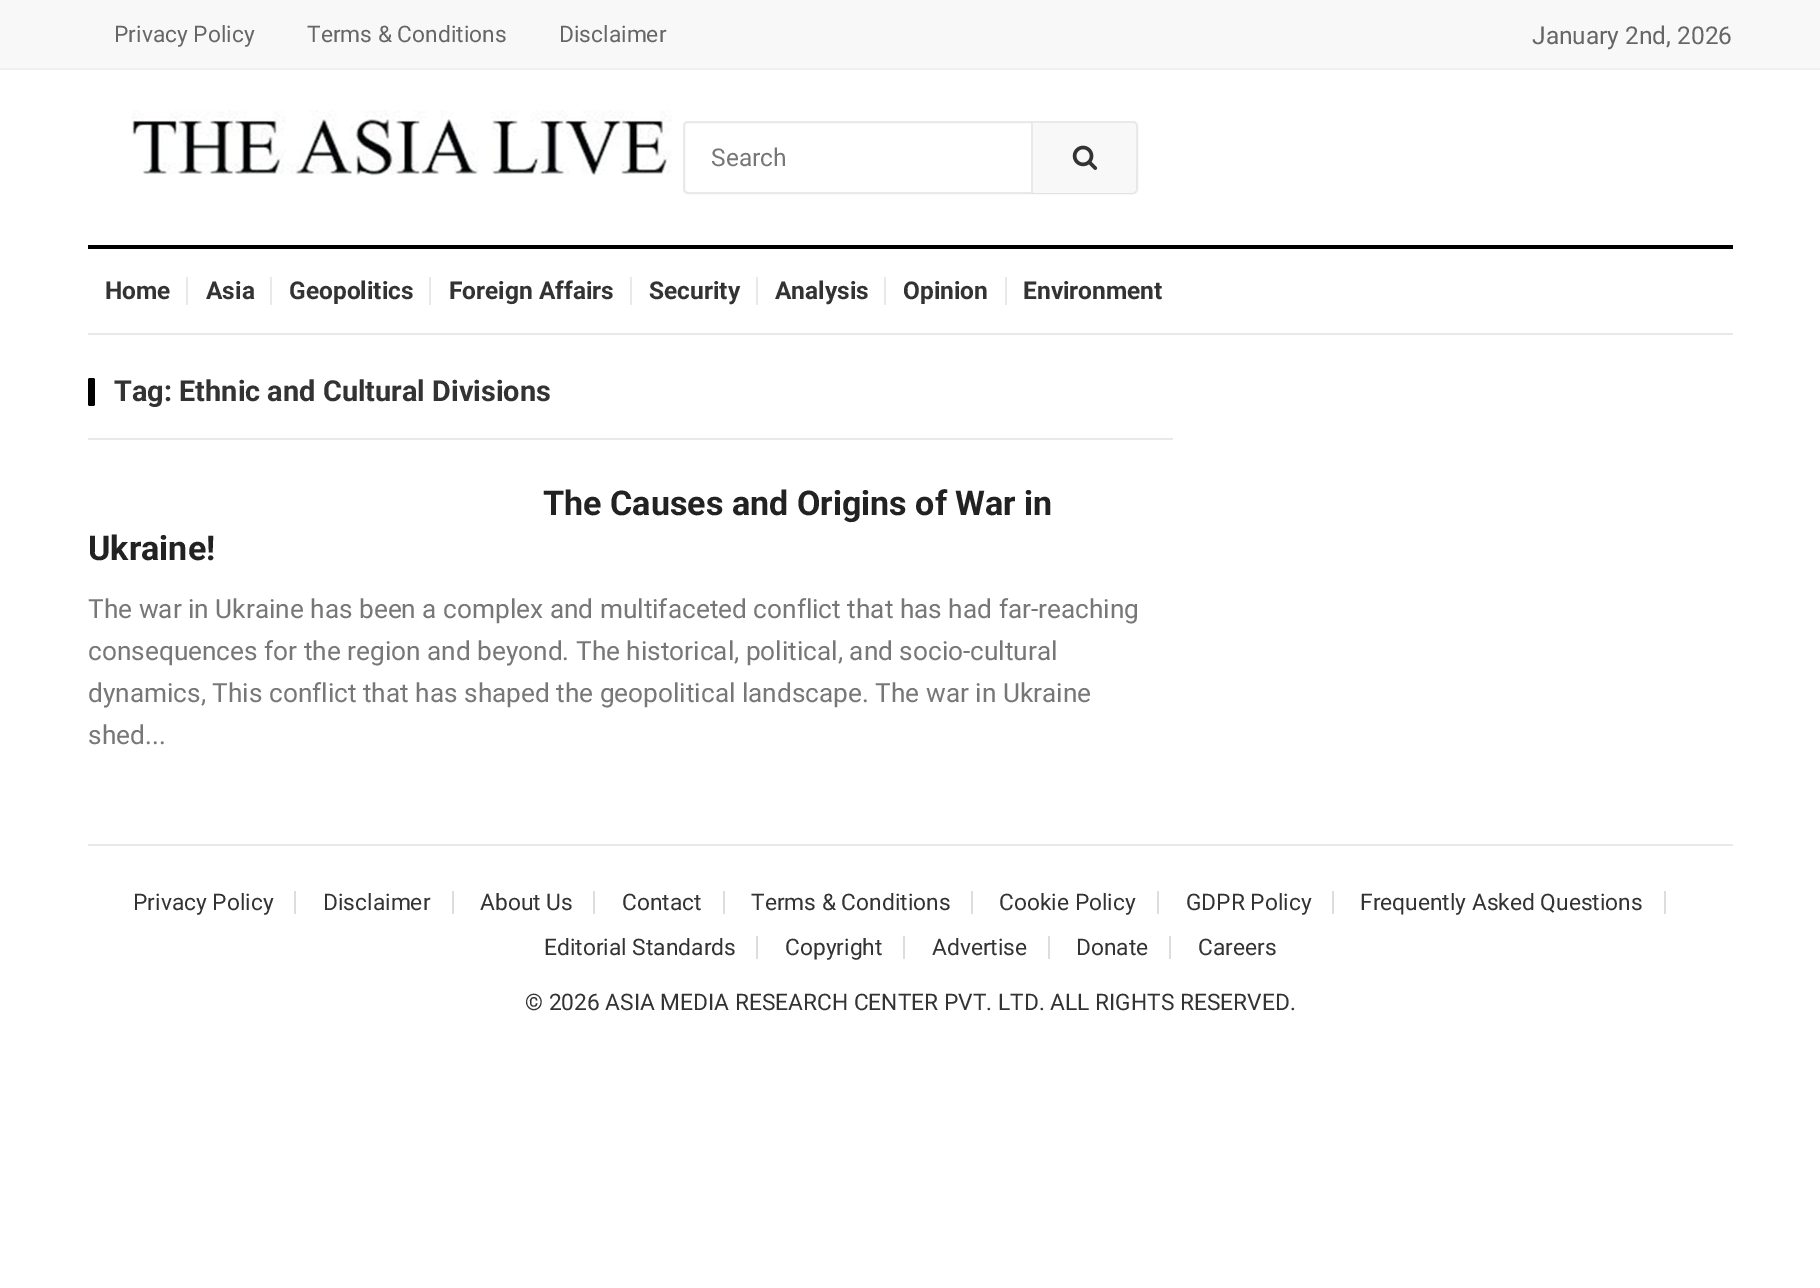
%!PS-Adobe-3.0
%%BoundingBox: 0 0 1820 1288
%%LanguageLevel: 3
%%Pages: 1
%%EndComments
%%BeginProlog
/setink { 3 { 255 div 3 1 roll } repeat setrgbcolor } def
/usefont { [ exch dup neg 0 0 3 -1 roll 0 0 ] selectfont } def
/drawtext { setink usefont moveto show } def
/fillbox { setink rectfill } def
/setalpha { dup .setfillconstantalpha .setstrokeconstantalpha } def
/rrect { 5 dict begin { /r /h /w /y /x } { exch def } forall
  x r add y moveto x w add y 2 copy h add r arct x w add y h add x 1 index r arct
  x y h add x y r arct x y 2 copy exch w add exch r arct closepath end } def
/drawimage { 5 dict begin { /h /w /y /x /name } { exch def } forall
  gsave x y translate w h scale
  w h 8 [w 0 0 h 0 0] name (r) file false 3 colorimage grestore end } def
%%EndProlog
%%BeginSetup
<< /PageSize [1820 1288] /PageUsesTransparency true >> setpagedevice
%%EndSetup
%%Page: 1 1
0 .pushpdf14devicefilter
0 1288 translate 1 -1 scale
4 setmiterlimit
0 0 1820 1288 255 255 255 fillbox
0 0 1820 68 248 248 248 fillbox
0 68 1820 2 240 240 240 fillbox
(Privacy Policy) 114 42 /Roboto-Regular 22.75 102 102 102 drawtext
(Terms & Conditions) 307 42 /Roboto-Regular 22.75 102 102 102 drawtext
(Disclaimer) 559 42 /Roboto-Regular 22.75 102 102 102 drawtext
(January 2nd, 2026) 1532 44 /Roboto-Regular 24.5 102 102 102 drawtext
(assets/img1.rgb) 131 110 541 66 drawimage
233 233 233 setink
2 setlinewidth
684 122 453 71 4 rrect stroke
(Search) 711 166 /Roboto-Regular 24.5 119 119 119 drawtext
0.03 setalpha
0 0 0 setink
1031 192 moveto 1031 194 lineto 1131 194 lineto 1138 194 1136 183 1136 179 curveto 1136 127 lineto 1136 167 lineto 1136 195 1141 192 1114 192 curveto closepath fill
1 setalpha
248 248 248 setink
1031 123 moveto 1131 123 lineto 1134 123 1136 125 1136 128 curveto 1136 188 lineto 1136 191 1134 193 1131 193 curveto 1031 193 lineto closepath fill
1031 123 2 70 233 233 233 fillbox
(assets/img2.rgb) 1072 145 26 25 drawimage
88 245 1645 4 0 0 0 fillbox
88 333 1645 2 233 233 233 fillbox
(Home) 105 299 /Roboto-Bold 24.5 51 51 51 drawtext
186 277 2 28 233 233 233 fillbox
(Asia) 206 299 /Roboto-Bold 24.5 51 51 51 drawtext
270 277 2 28 233 233 233 fillbox
(Geopolitics) 289 299 /Roboto-Bold 24.5 51 51 51 drawtext
429 277 2 28 233 233 233 fillbox
(Foreign Affairs) 449 299 /Roboto-Bold 24.5 51 51 51 drawtext
630 277 2 28 233 233 233 fillbox
(Security) 649 299 /Roboto-Bold 24.5 51 51 51 drawtext
756 277 2 28 233 233 233 fillbox
(Analysis) 775 299 /Roboto-Bold 24.5 51 51 51 drawtext
884 277 2 28 233 233 233 fillbox
(Opinion) 903 299 /Roboto-Bold 24.5 51 51 51 drawtext
1005 277 2 28 233 233 233 fillbox
(Environment) 1023 299 /Roboto-Bold 24.5 51 51 51 drawtext
88 438 1085 2 233 233 233 fillbox
0 0 0 setink
88 378 7 28 2 rrect fill
(Tag: Ethnic and Cultural Divisions) 114 401 /Roboto-Bold 28.9 51 51 51 drawtext
(The Causes and Origins of War in) 543 515 /Roboto-Bold 34.1 34 34 34 drawtext
(Ukraine!) 88 560 /Roboto-Bold 34.1 34 34 34 drawtext
(The war in Ukraine has been a complex and multifaceted conflict that has had far-reaching) 88 618 /Roboto-Regular 26.25 119 119 119 drawtext
(consequences for the region and beyond. The historical, political, and socio-cultural) 88 660 /Roboto-Regular 26.25 119 119 119 drawtext
(dynamics, This conflict that has shaped the geopolitical landscape. The war in Ukraine) 88 702 /Roboto-Regular 26.25 119 119 119 drawtext
(shed...) 88 744 /Roboto-Regular 26.25 119 119 119 drawtext
88 844 1645 2 233 233 233 fillbox
294 891 2 23 221 221 221 fillbox
(Privacy Policy) 133 910 /Roboto-Regular 22.75 51 51 51 drawtext
452 891 2 23 221 221 221 fillbox
(Disclaimer) 323 910 /Roboto-Regular 22.75 51 51 51 drawtext
593 891 2 23 221 221 221 fillbox
(About Us) 480 910 /Roboto-Regular 22.75 51 51 51 drawtext
723 891 2 23 221 221 221 fillbox
(Contact) 622 910 /Roboto-Regular 22.75 51 51 51 drawtext
971 891 2 23 221 221 221 fillbox
(Terms & Conditions) 751 910 /Roboto-Regular 22.75 51 51 51 drawtext
1157 891 2 23 221 221 221 fillbox
(Cookie Policy) 999 910 /Roboto-Regular 22.75 51 51 51 drawtext
1332 891 2 23 221 221 221 fillbox
(GDPR Policy) 1186 910 /Roboto-Regular 22.75 51 51 51 drawtext
1664 891 2 23 221 221 221 fillbox
(Frequently Asked Questions) 1360 910 /Roboto-Regular 22.75 51 51 51 drawtext
756 936 2 23 221 221 221 fillbox
(Editorial Standards) 544 955 /Roboto-Regular 22.75 51 51 51 drawtext
903 936 2 23 221 221 221 fillbox
(Copyright) 785 955 /Roboto-Regular 22.75 51 51 51 drawtext
1048 936 2 23 221 221 221 fillbox
(Advertise) 932 955 /Roboto-Regular 22.75 51 51 51 drawtext
1169 936 2 23 221 221 221 fillbox
(Donate) 1076 955 /Roboto-Regular 22.75 51 51 51 drawtext
(Careers) 1198 955 /Roboto-Regular 22.75 51 51 51 drawtext
(© 2026 ASIA MEDIA RESEARCH CENTER PVT. LTD. ALL RIGHTS RESERVED.) 525 1010 /Roboto-Regular 22.75 51 51 51 drawtext
.poppdf14devicefilter showpage
%%EOF
